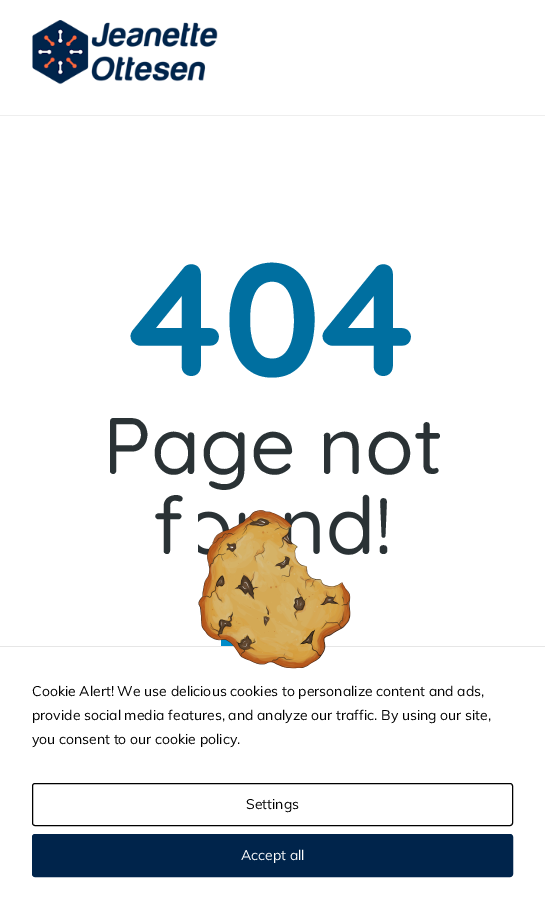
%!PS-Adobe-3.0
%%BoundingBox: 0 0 545 909
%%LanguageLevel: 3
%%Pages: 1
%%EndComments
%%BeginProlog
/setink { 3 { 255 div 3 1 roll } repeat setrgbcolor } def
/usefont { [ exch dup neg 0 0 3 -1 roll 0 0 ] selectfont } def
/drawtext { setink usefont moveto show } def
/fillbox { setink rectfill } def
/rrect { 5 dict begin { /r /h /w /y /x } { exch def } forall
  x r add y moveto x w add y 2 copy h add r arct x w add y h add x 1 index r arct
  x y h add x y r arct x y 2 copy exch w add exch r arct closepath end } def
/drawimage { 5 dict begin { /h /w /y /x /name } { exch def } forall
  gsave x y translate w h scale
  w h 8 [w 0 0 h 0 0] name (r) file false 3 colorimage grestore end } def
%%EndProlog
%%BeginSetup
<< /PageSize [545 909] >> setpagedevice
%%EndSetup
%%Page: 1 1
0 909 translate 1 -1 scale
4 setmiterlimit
0 0 545 909 255 255 255 fillbox
0 115 545 1 238 238 238 fillbox
(assets/img1.rgb) 32 20 186 65 drawimage
(404) 129 376 /Quicksand-Bold 160 0 111 160 drawtext
(Page not) 103 474 /Quicksand-Medium 80 42 50 53 drawtext
(f) 153 554 /Quicksand-Medium 80 42 50 53 drawtext
(d!) 326 554 /Quicksand-Medium 80 42 50 53 drawtext
222 639 101 7 0 140 201 fillbox
221.5 605.5 102 49 rectstroke
221 647 103 8 255 255 255 fillbox
0 646 545 1 230 230 230 fillbox
(assets/img2.rgb) 198 510 153 159 drawimage
(Cookie Alert! We use delicious cookies to personalize content and ads,) 32 696 /Muli-Regular 14 0 0 0 drawtext
(provide social media features, and analyze our traffic. By using our site,) 32 720 /Muli-Regular 14 0 0 0 drawtext
(you consent to our cookie policy.) 32 744 /Muli-Regular 14 0 0 0 drawtext
32.5 783.5 480 42 2.5 rrect stroke
(Settings) 246 809 /Muli-Regular 14 0 0 0 drawtext
0 36 75 setink
32.5 834.5 480 42 2.5 rrect gsave fill grestore
stroke
(Accept all) 241 860 /Muli-Regular 14 255 255 255 drawtext
showpage
%%EOF
